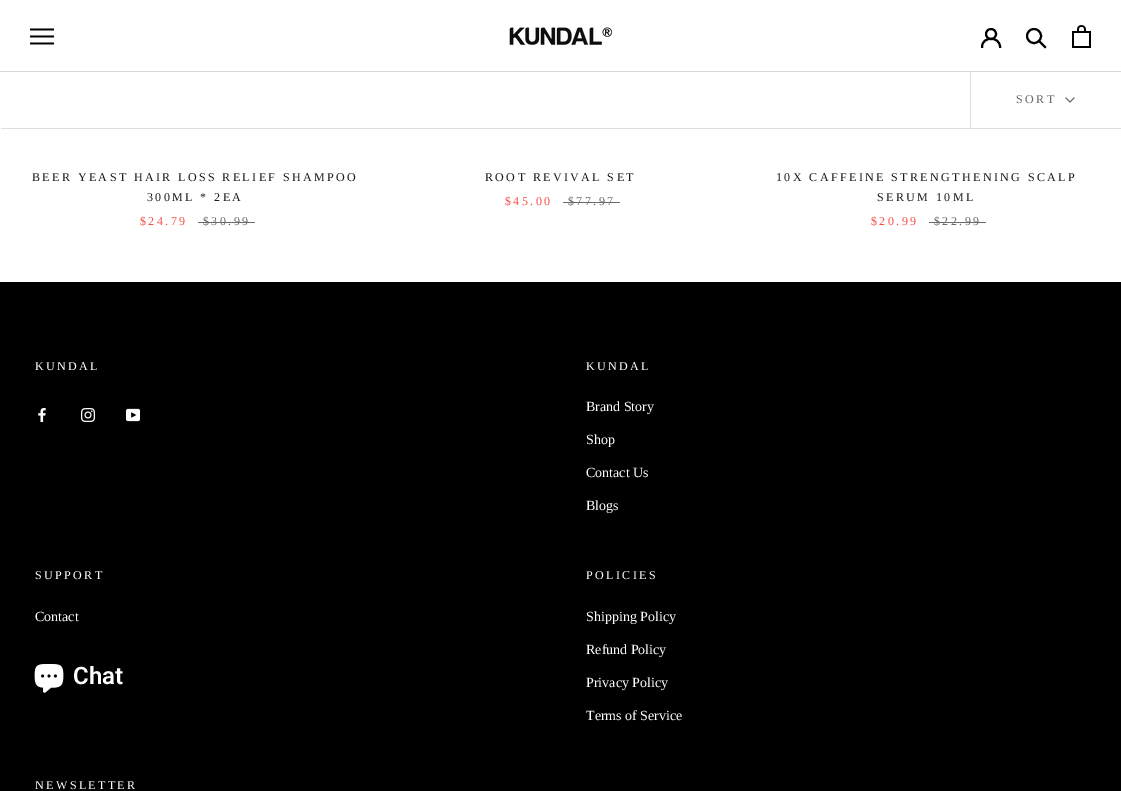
%!PS-Adobe-3.0
%%BoundingBox: 0 0 1121 791
%%LanguageLevel: 3
%%Pages: 1
%%EndComments
%%BeginProlog
/setink { 3 { 255 div 3 1 roll } repeat setrgbcolor } def
/usefont { [ exch dup neg 0 0 3 -1 roll 0 0 ] selectfont } def
/drawtext { setink usefont moveto show } def
/fillbox { setink rectfill } def
/disc { newpath 0 360 arc closepath } def
/drawimage { 5 dict begin { /h /w /y /x /name } { exch def } forall
  gsave x y translate w h scale
  w h 8 [w 0 0 h 0 0] name (r) file false 3 colorimage grestore end } def
%%EndProlog
%%BeginSetup
<< /PageSize [1121 791] >> setpagedevice
%%EndSetup
%%Page: 1 1
0 791 translate 1 -1 scale
4 setmiterlimit
0 0 1121 791 255 255 255 fillbox
0 71 1121 1 217 217 217 fillbox
(assets/img1.rgb) 30 28 24 17 drawimage
(assets/img2.rgb) 509 27 104 18 drawimage
0 0 0 setink
2 setlinewidth
2 setlinecap
982 47 moveto 982 36 1000 36 1000 47 curveto stroke
0 setlinecap
991 34 5 disc stroke
2 setlinecap
1045 47 moveto 1039.5 41.5 lineto stroke
0 setlinecap
1034 36 7 disc stroke
(assets/img3.rgb) 1072 25 19 23 drawimage
221 221 221 setink
1 128 moveto 1 129 lineto 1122 129 lineto 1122 73 lineto 1121 73 lineto 1121 128 lineto closepath fill
970 72 1 56 221 221 221 fillbox
/LiberationSerif-Regular 12 usefont
106 106 106 setink
1016 103 moveto 2.4 0 (SORT) ashow
1 setlinewidth
2 setlinecap
1074 98 moveto 1070 102 lineto 1066 98 lineto stroke
28 27 27 setink
32 181 moveto 2.4 0 (BEER YEAST HAIR LOSS RELIEF SHAMPOO) ashow
147 201 moveto 2.4 0 (300ML * 2EA) ashow
249 76 67 setink
140 225 moveto 2.4 0 ($24.79) ashow
106 106 106 setink
203 225 moveto 2.4 0 ($30.99) ashow
198 222 57 1 106 106 106 fillbox
28 27 27 setink
485 181 moveto 2.4 0 (ROOT REVIVAL SET) ashow
249 76 67 setink
505 205 moveto 2.4 0 ($45.00) ashow
106 106 106 setink
568 205 moveto 2.4 0 ($77.97) ashow
563 202 57 1 106 106 106 fillbox
28 27 27 setink
776 181 moveto 2.4 0 (10X CAFFEINE STRENGTHENING SCALP) ashow
877 201 moveto 2.4 0 (SERUM 10ML) ashow
249 76 67 setink
871 225 moveto 2.4 0 ($20.99) ashow
106 106 106 setink
934 225 moveto 2.4 0 ($22.99) ashow
929 222 57 1 106 106 106 fillbox
0 282 1121 509 0 0 0 fillbox
255 255 255 setink
35 370 moveto 2.4 0 (KUNDAL) ashow
(assets/img4.rgb) 38 408 8 14 drawimage
(assets/img5.rgb) 81 408 14 14 drawimage
(assets/img6.rgb) 126 408 14 14 drawimage
586 370 moveto 2.4 0 (KUNDAL) ashow
(Brand Story) 586 411 /LiberationSerif-Regular 14 255 255 255 drawtext
(Shop) 586 444 /LiberationSerif-Regular 14 255 255 255 drawtext
(Contact Us) 586 477 /LiberationSerif-Regular 14 255 255 255 drawtext
(Blogs) 586 510 /LiberationSerif-Regular 14 255 255 255 drawtext
/LiberationSerif-Regular 12 usefont
35 579 moveto 2.4 0 (SUPPORT) ashow
(Contact) 35 621 /LiberationSerif-Regular 14 255 255 255 drawtext
/LiberationSerif-Regular 12 usefont
586 579 moveto 2.4 0 (POLICIES) ashow
(Shipping Policy) 586 621 /LiberationSerif-Regular 14 255 255 255 drawtext
(Refund Policy) 586 654 /LiberationSerif-Regular 14 255 255 255 drawtext
(Privacy Policy) 586 687 /LiberationSerif-Regular 14 255 255 255 drawtext
(Terms of Service) 586 720 /LiberationSerif-Regular 14 255 255 255 drawtext
/LiberationSerif-Regular 12 usefont
35 789 moveto 2.4 0 (NEWSLETTER) ashow
(assets/img7.rgb) 34 664 30 29 drawimage
(Chat) 73 684 /Roboto-SemiBold 24 255 255 255 drawtext
showpage
%%EOF
